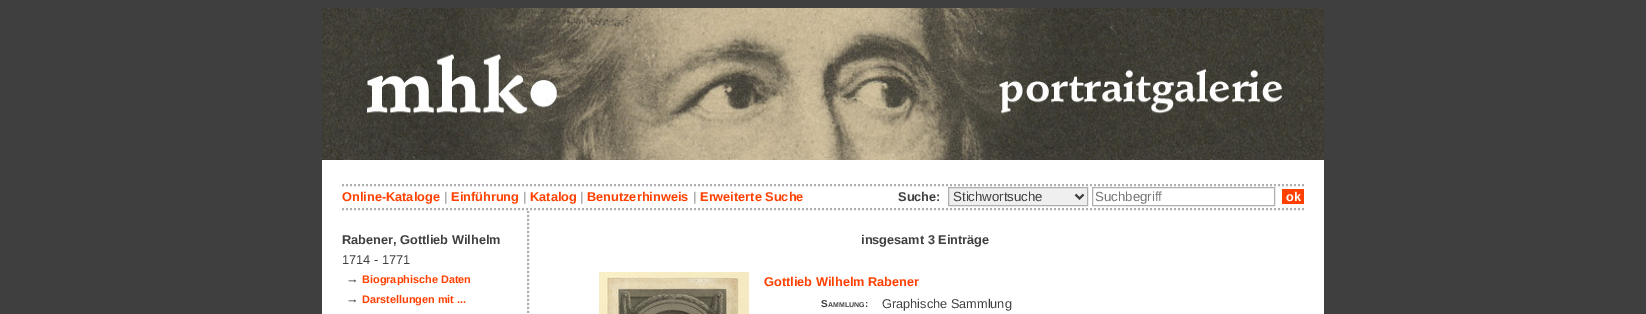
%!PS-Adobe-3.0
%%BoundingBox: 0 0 1646 314
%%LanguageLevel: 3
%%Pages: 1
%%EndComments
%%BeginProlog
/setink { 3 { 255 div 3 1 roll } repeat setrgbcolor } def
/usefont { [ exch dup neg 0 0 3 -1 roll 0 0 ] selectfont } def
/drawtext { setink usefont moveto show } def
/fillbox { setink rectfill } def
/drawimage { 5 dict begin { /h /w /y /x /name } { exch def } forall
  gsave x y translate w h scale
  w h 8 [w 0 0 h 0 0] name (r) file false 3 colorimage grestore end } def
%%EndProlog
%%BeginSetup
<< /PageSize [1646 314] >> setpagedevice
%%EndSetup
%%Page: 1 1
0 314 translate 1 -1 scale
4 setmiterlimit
0 0 1646 314 63 63 63 fillbox
322 160 1002 154 255 255 255 fillbox
(assets/img1.rgb) 322 8 1002 152 drawimage
175 175 175 setink
2 setlinewidth
[2 2] 0 setdash
342 185 moveto 1304 185 lineto stroke
(Online-Kataloge) 342 201 /LiberationSans-Bold 12.75 255 64 0 drawtext
(|) 444 201 /LiberationSans-Bold 12.75 175 175 175 drawtext
(Einführung) 451 201 /LiberationSans-Bold 12.75 255 64 0 drawtext
(|) 523 201 /LiberationSans-Bold 12.75 175 175 175 drawtext
(Katalog) 530 201 /LiberationSans-Bold 12.75 255 64 0 drawtext
(|) 580 201 /LiberationSans-Bold 12.75 175 175 175 drawtext
(Benutzerhinweis) 587 201 /LiberationSans-Bold 12.75 255 64 0 drawtext
(|) 693 201 /LiberationSans-Bold 12.75 175 175 175 drawtext
(Erweiterte Suche) 700 201 /LiberationSans-Bold 12.75 255 64 0 drawtext
(Suche:) 898 201 /LiberationSans-Bold 12.75 63 63 63 drawtext
239 239 239 setink
948.5 187.5 moveto 1087.5 187.5 lineto 1087.5 205.5 lineto 948.5 205.5 lineto closepath gsave fill grestore
175 175 175 setink
1 setlinewidth
[] 0 setdash
stroke
63 63 63 setink
2 setlinewidth
1075.5 194.5 moveto 1079.5 198.5 lineto 1083.5 194.5 lineto stroke
(Stichwortsuche) 953 201 /LiberationSans-Regular 13.25 63 63 63 drawtext
175 175 175 setink
1 setlinewidth
1092.5 187.5 182 18 rectstroke
(Suchbegriff) 1095 201 /LiberationSans-Regular 13.25 117 117 117 drawtext
1282 189 22 15 255 64 0 fillbox
(ok) 1286 201 /LiberationSans-Bold 12.75 255 255 255 drawtext
175 175 175 setink
2 setlinewidth
[2 2] 0 setdash
342 209 moveto 1304 209 lineto stroke
(Rabener, Gottlieb Wilhelm) 342 244 /LiberationSans-Bold 12.75 63 63 63 drawtext
(1714 - 1771) 342 264 /LiberationSans-Regular 12.75 63 63 63 drawtext
(→) 346 283 /LiberationSans-Bold 12.75 63 63 63 drawtext
(Biographische Daten) 362 283 /LiberationSans-Bold 10.9 255 64 0 drawtext
(→) 346 303 /LiberationSans-Bold 12.75 63 63 63 drawtext
(Darstellungen mit ...) 362 303 /LiberationSans-Bold 10.9 255 64 0 drawtext
175 175 175 setink
528 211 moveto 528 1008 lineto stroke
(insgesamt 3 Einträge) 861 244 /LiberationSans-Bold 12.75 63 63 63 drawtext
(assets/img2.rgb) 599 272 150 42 drawimage
(Gottlieb Wilhelm Rabener) 764 286 /LiberationSans-Bold 12.75 255 64 0 drawtext
(S) 821 307 /LiberationSans-Bold 10 63 63 63 drawtext
(AMMLUNG) 828 307 /LiberationSans-Bold 7 63 63 63 drawtext
(:) 865 307 /LiberationSans-Bold 10 63 63 63 drawtext
(Graphische Sammlung) 882 308 /LiberationSans-Regular 12.75 63 63 63 drawtext
showpage
%%EOF
